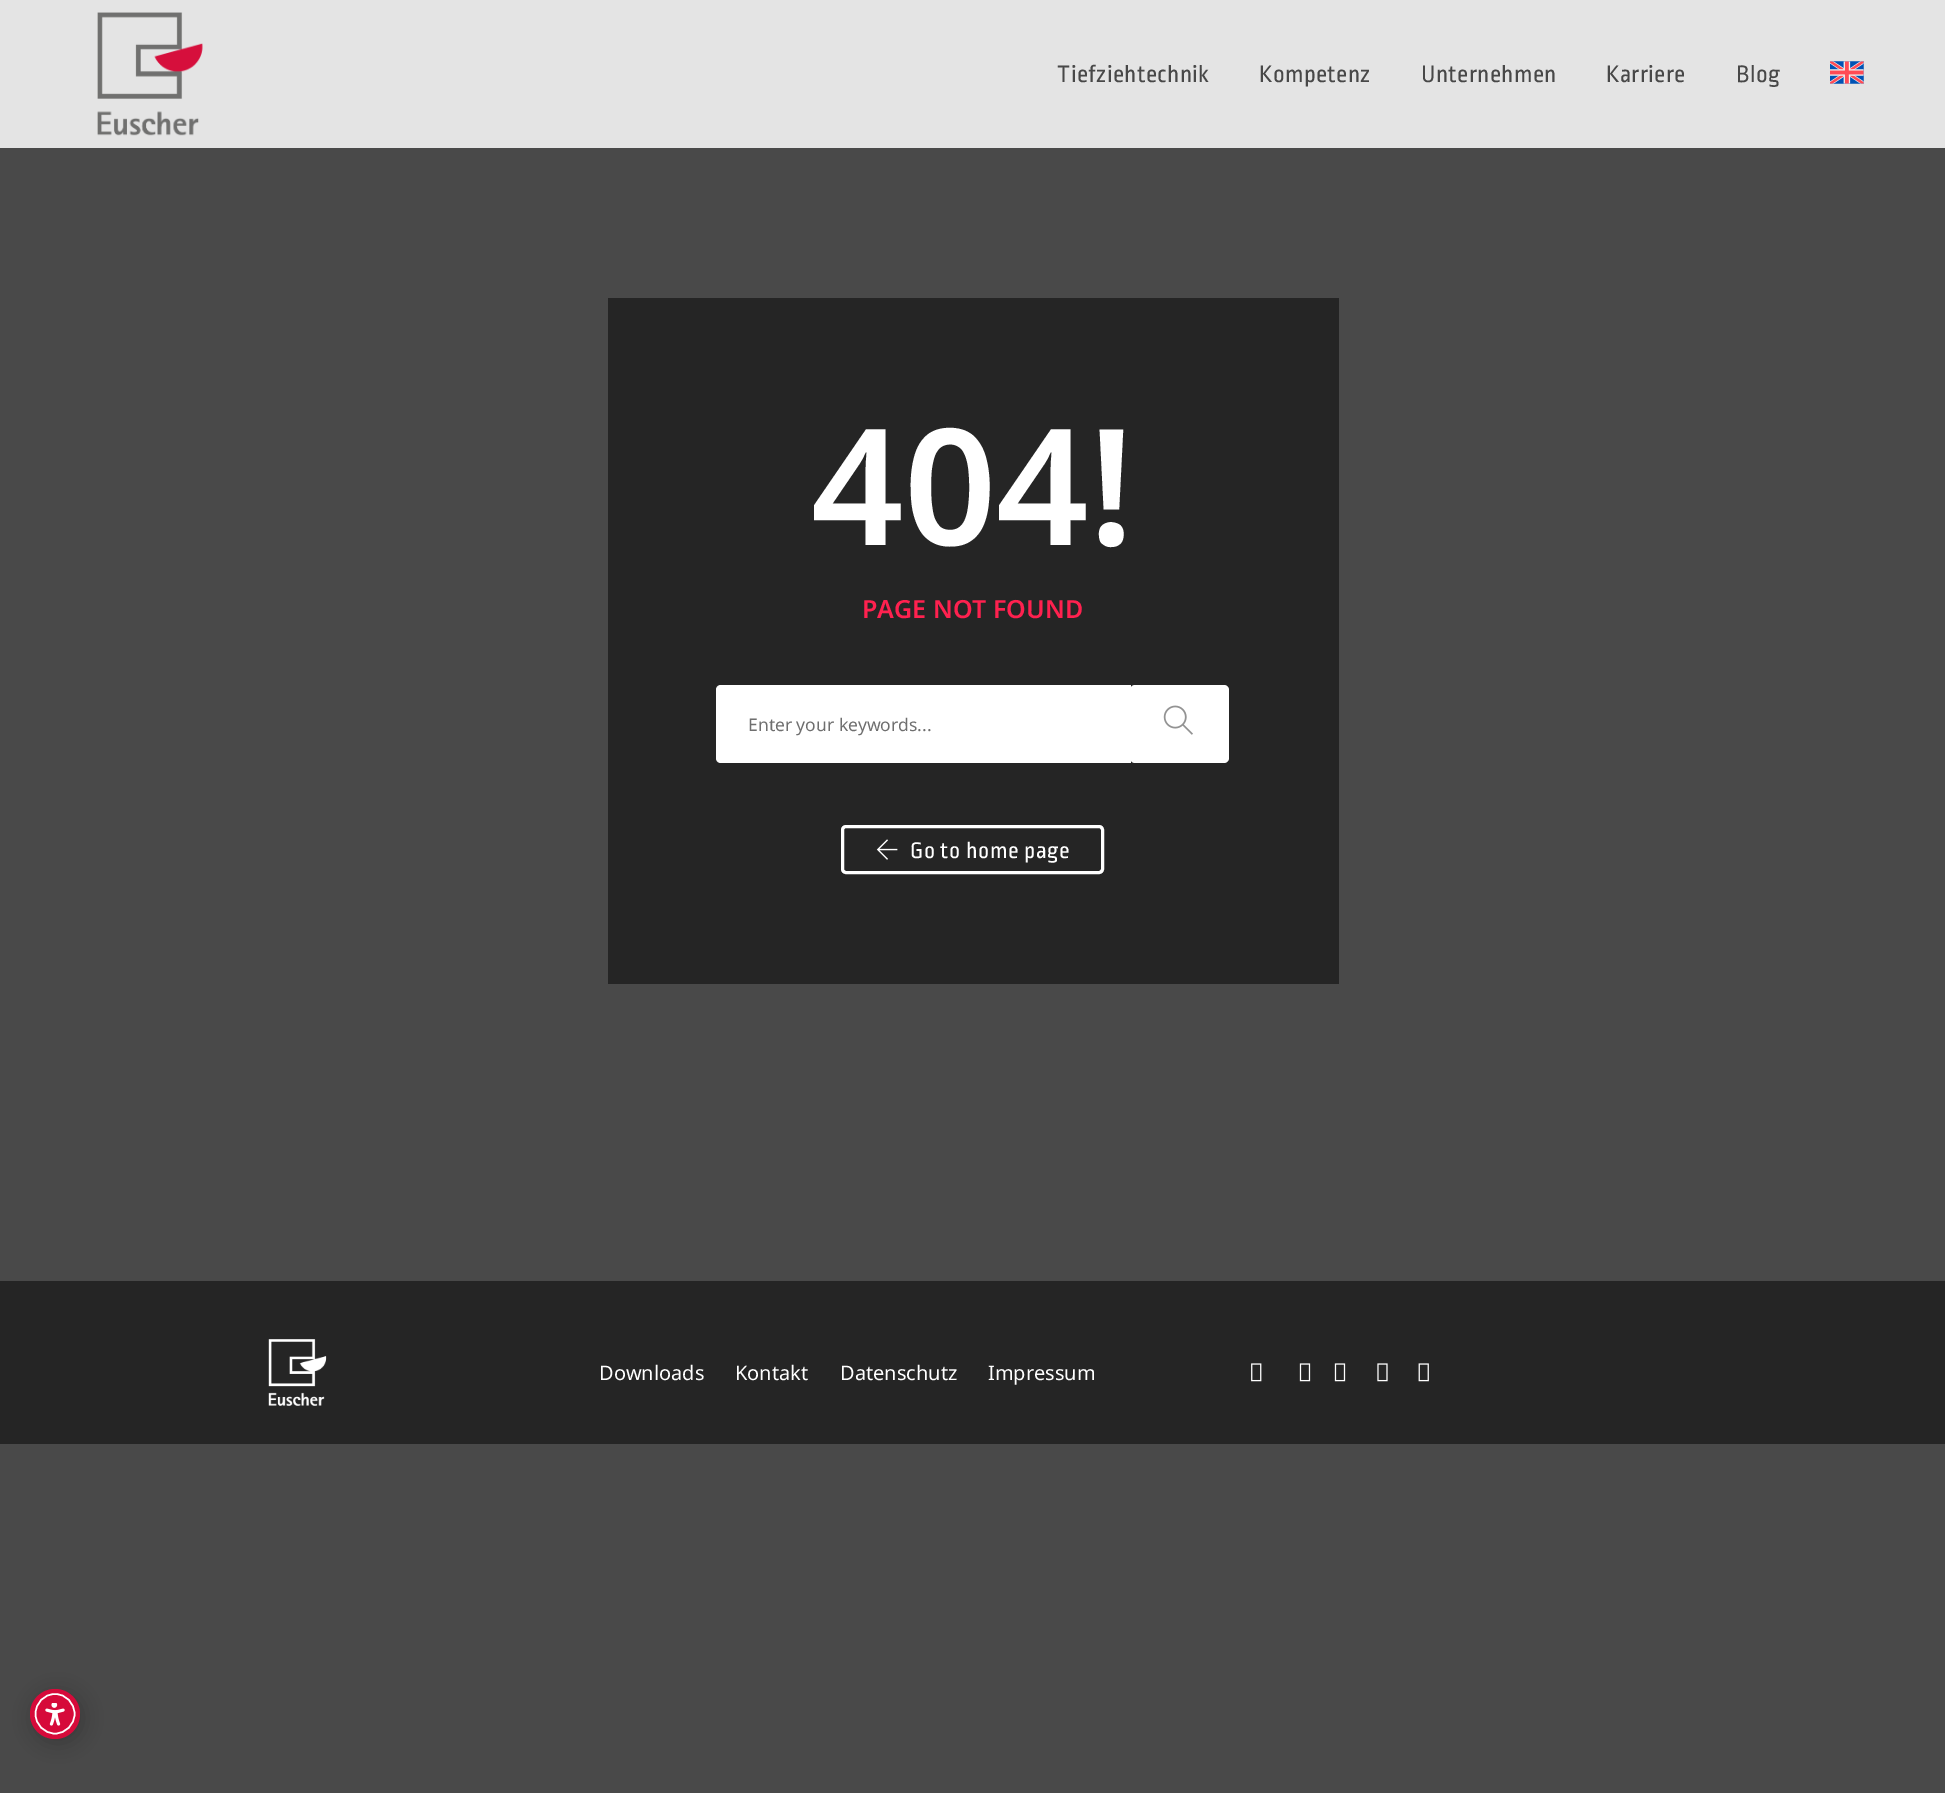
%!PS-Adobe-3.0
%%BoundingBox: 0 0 1945 1793
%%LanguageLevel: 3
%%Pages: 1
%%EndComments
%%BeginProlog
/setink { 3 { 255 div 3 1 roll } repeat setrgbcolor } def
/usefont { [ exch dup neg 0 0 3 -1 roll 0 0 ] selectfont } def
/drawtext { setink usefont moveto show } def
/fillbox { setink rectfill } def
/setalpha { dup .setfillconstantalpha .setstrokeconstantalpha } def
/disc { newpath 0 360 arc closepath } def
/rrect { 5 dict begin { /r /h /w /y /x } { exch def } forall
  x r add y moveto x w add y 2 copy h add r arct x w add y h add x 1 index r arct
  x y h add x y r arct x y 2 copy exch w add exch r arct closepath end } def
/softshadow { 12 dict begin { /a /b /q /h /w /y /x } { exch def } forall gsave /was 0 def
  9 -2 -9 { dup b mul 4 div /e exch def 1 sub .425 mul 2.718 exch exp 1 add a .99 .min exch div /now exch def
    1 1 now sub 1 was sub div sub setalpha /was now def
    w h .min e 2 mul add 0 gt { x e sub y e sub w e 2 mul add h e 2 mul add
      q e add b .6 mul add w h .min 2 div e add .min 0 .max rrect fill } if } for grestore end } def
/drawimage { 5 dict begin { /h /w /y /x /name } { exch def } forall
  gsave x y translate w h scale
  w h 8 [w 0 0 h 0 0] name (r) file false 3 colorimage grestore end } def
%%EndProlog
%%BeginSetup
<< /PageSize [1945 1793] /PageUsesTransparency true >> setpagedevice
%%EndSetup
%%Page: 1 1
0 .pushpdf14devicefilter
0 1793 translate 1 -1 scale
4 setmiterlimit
0 0 1945 1793 73 73 73 fillbox
0 0 1945 148 228 228 228 fillbox
(assets/img1.rgb) 97 12 106 124 drawimage
/RopaSans-Regular 25 usefont
72 72 72 setink
1057 82 moveto 0.4 0 (Tiefziehtechnik) ashow
1259 82 moveto 0.4 0 (Kompetenz) ashow
1421 82 moveto 0.4 0 (Unternehmen) ashow
1606 82 moveto 0.4 0 (Karriere) ashow
1736 82 moveto 0.4 0 (Blog) ashow
(assets/img2.rgb) 1830 61 34 23 drawimage
608 298 731 686 37 37 37 fillbox
(404!) 811 545 /NotoSans-SemiBold 162 255 255 255 drawtext
(PAGE NOT FOUND) 862 618 /NotoSans-SemiBold 25 255 33 79 drawtext
255 255 255 setink
721 685 moveto 1131 685 lineto 1131 763 lineto 721 763 lineto 718 763 716 761 716 758 curveto 716 690 lineto 716 687 718 685 721 685 curveto closepath fill
(Enter your keywords...) 748 731 /NotoSans-Regular 17.5 111 111 111 drawtext
255 255 255 setink
1130 685 99 78 5 rrect fill
(assets/img3.rgb) 1163 705 30 30 drawimage
3 setlinewidth
842.5 826.5 260 46 3.5 rrect stroke
(assets/img4.rgb) 876 839 22 21 drawimage
/RopaSans-Regular 23.75 usefont
910 858 moveto 0.6 0 (Go to home page) ashow
0 1281 1945 163 37 37 37 fillbox
(assets/img5.rgb) 268 1339 59 67 drawimage
(Downloads) 599 1380 /NotoSans-Regular 20 255 255 255 drawtext
(Kontakt) 735 1380 /NotoSans-Regular 20 255 255 255 drawtext
(Datenschutz) 840 1380 /NotoSans-Regular 20 255 255 255 drawtext
(Impressum) 988 1380 /NotoSans-Regular 20 255 255 255 drawtext
(assets/img6.rgb) 1251 1363 11 19 drawimage
(assets/img7.rgb) 1299 1363 12 19 drawimage
(assets/img7.rgb) 1334 1363 12 19 drawimage
(assets/img8.rgb) 1377 1363 11 19 drawimage
(assets/img9.rgb) 1418 1363 11 19 drawimage
0 0 0 setink
33 1693 50 50 25 9.5 0.2 softshadow
214 10 58 setink
55 1714 25 disc fill
gsave
34 1693 42 42 21 rrect clip newpath
255 255 255 setink
1.5 setlinewidth
35.5 1714 moveto 35.5 1703 44 1694 55 1694 curveto 66 1694 74.5 1703 74.5 1714 curveto 74.5 1724.5 66 1733.5 55 1733.5 curveto 44 1733.5 35.5 1724.5 35.5 1714 curveto stroke
grestore
(assets/img10.rgb) 45 1703 20 23 drawimage
.poppdf14devicefilter showpage
%%EOF
